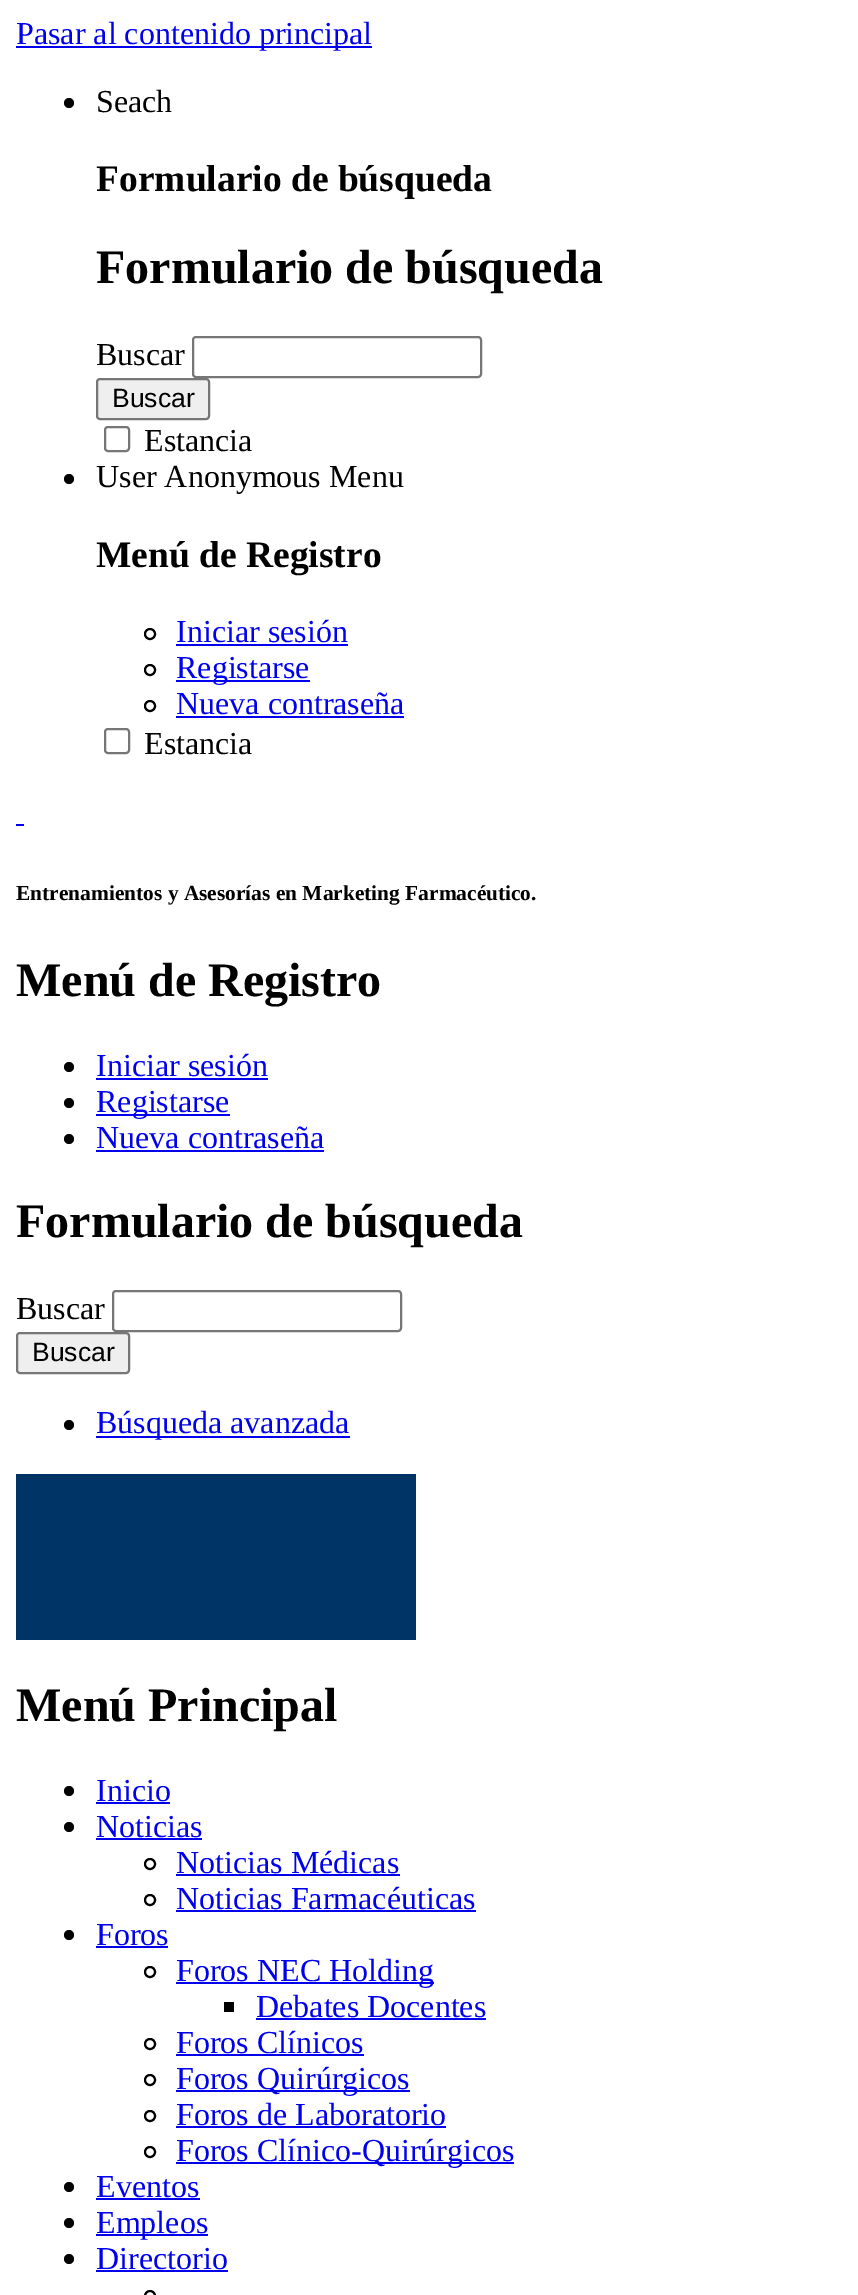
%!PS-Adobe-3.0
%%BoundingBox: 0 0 858 2295
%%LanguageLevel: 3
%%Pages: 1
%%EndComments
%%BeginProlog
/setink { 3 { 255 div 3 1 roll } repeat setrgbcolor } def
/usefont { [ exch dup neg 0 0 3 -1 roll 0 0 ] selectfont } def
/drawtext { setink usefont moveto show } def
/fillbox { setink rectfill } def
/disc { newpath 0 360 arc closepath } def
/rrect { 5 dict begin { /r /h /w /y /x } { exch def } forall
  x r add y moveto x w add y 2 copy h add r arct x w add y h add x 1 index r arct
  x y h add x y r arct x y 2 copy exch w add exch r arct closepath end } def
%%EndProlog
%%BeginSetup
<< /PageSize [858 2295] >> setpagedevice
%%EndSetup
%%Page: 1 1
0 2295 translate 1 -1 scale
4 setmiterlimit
0 0 858 2295 255 255 255 fillbox
16 46 356 2 0 0 238 fillbox
(Pasar al contenido principal) 16 44 /LiberationSerif-Regular 32 0 0 238 drawtext
0 0 0 setink
69 103 5 disc fill
(Seach) 96 112 /LiberationSerif-Regular 32 0 0 0 drawtext
(Formulario de búsqueda) 96 191 /LiberationSerif-Bold 37.5 0 0 0 drawtext
(Formulario de búsqueda) 96 283 /LiberationSerif-Bold 48 0 0 0 drawtext
(Buscar) 96 365 /LiberationSerif-Regular 32 0 0 0 drawtext
118 118 118 setink
2 setlinewidth
193 337 288 40 3 rrect stroke
239 239 239 setink
97 379 112 40 3 rrect gsave fill grestore
118 118 118 setink
stroke
(Buscar) 112 407 /LiberationSans-Regular 26.5 0 0 0 drawtext
118 118 118 setink
105 427 24 24 3 rrect stroke
(Estancia) 144 451 /LiberationSerif-Regular 32 0 0 0 drawtext
69 479 5 disc fill
(User Anonymous Menu) 96 487 /LiberationSerif-Regular 32 0 0 0 drawtext
(Menú de Registro) 96 567 /LiberationSerif-Bold 37.5 0 0 0 drawtext
150 634 5 disc stroke
(Iniciar sesión) 176 642 /LiberationSerif-Regular 32 0 0 238 drawtext
176 644 172 2 0 0 238 fillbox
0 0 0 setink
150 670 5 disc stroke
176 680 134 2 0 0 238 fillbox
(Registarse) 176 678 /LiberationSerif-Regular 32 0 0 238 drawtext
0 0 0 setink
150 706 5 disc stroke
(Nueva contraseña) 176 714 /LiberationSerif-Regular 32 0 0 238 drawtext
176 716 228 2 0 0 238 fillbox
118 118 118 setink
105 729 24 24 3 rrect stroke
(Estancia) 144 754 /LiberationSerif-Regular 32 0 0 0 drawtext
16 824 8 2 0 0 238 fillbox
(Entrenamientos y Asesorías en Marketing Farmacéutico.) 16 900 /LiberationSerif-Bold 21.4 0 0 0 drawtext
(Menú de Registro) 16 996 /LiberationSerif-Bold 48 0 0 0 drawtext
69 1067 5 disc fill
(Iniciar sesión) 96 1076 /LiberationSerif-Regular 32 0 0 238 drawtext
96 1078 172 2 0 0 238 fillbox
0 0 0 setink
69 1103 5 disc fill
96 1114 134 2 0 0 238 fillbox
(Registarse) 96 1112 /LiberationSerif-Regular 32 0 0 238 drawtext
0 0 0 setink
69 1139 5 disc fill
(Nueva contraseña) 96 1148 /LiberationSerif-Regular 32 0 0 238 drawtext
96 1150 228 2 0 0 238 fillbox
(Formulario de búsqueda) 16 1237 /LiberationSerif-Bold 48 0 0 0 drawtext
(Buscar) 16 1319 /LiberationSerif-Regular 32 0 0 0 drawtext
118 118 118 setink
113 1291 288 40 3 rrect stroke
239 239 239 setink
17 1333 112 40 3 rrect gsave fill grestore
118 118 118 setink
stroke
(Buscar) 32 1361 /LiberationSans-Regular 26.5 0 0 0 drawtext
69 1425 5 disc fill
96 1436 254 2 0 0 238 fillbox
(Búsqueda avanzada) 96 1433 /LiberationSerif-Regular 32 0 0 238 drawtext
16 1474 400 166 0 51 102 fillbox
(Menú Principal) 16 1721 /LiberationSerif-Bold 48 0 0 0 drawtext
69 1791 5 disc fill
(Inicio) 96 1801 /LiberationSerif-Regular 32 0 0 238 drawtext
96 1802 74 2 0 0 238 fillbox
0 0 0 setink
69 1827 5 disc fill
(Noticias) 96 1837 /LiberationSerif-Regular 32 0 0 238 drawtext
96 1838 106 2 0 0 238 fillbox
0 0 0 setink
150 1864 5 disc stroke
(Noticias Médicas) 176 1873 /LiberationSerif-Regular 32 0 0 238 drawtext
176 1874 224 2 0 0 238 fillbox
0 0 0 setink
150 1900 5 disc stroke
(Noticias Farmacéuticas) 176 1909 /LiberationSerif-Regular 32 0 0 238 drawtext
176 1910 300 2 0 0 238 fillbox
0 0 0 setink
69 1935 5 disc fill
(Foros) 96 1945 /LiberationSerif-Regular 32 0 0 238 drawtext
96 1946 72 2 0 0 238 fillbox
0 0 0 setink
150 1972 5 disc stroke
176 1982 258 2 0 0 238 fillbox
(Foros NEC Holding) 176 1981 /LiberationSerif-Regular 32 0 0 238 drawtext
224 2002 10 10 0 0 0 fillbox
(Debates Docentes) 256 2017 /LiberationSerif-Regular 32 0 0 238 drawtext
256 2018 230 2 0 0 238 fillbox
0 0 0 setink
150 2044 5 disc stroke
(Foros Clínicos) 176 2053 /LiberationSerif-Regular 32 0 0 238 drawtext
176 2054 188 2 0 0 238 fillbox
0 0 0 setink
150 2080 5 disc stroke
176 2090 234 2 0 0 238 fillbox
(Foros Quirúrgicos) 176 2089 /LiberationSerif-Regular 32 0 0 238 drawtext
0 0 0 setink
150 2116 5 disc stroke
(Foros de Laboratorio) 176 2125 /LiberationSerif-Regular 32 0 0 238 drawtext
176 2126 270 2 0 0 238 fillbox
0 0 0 setink
150 2152 5 disc stroke
176 2162 338 2 0 0 238 fillbox
(Foros Clínico-Quirúrgicos) 176 2161 /LiberationSerif-Regular 32 0 0 238 drawtext
0 0 0 setink
69 2187 5 disc fill
(Eventos) 96 2197 /LiberationSerif-Regular 32 0 0 238 drawtext
96 2198 104 2 0 0 238 fillbox
0 0 0 setink
69 2223 5 disc fill
96 2234 112 2 0 0 238 fillbox
(Empleos) 96 2233 /LiberationSerif-Regular 32 0 0 238 drawtext
0 0 0 setink
69 2259 5 disc fill
(Directorio) 96 2269 /LiberationSerif-Regular 32 0 0 238 drawtext
96 2270 132 2 0 0 238 fillbox
0 0 0 setink
150 2296 5 disc stroke
showpage
%%EOF
